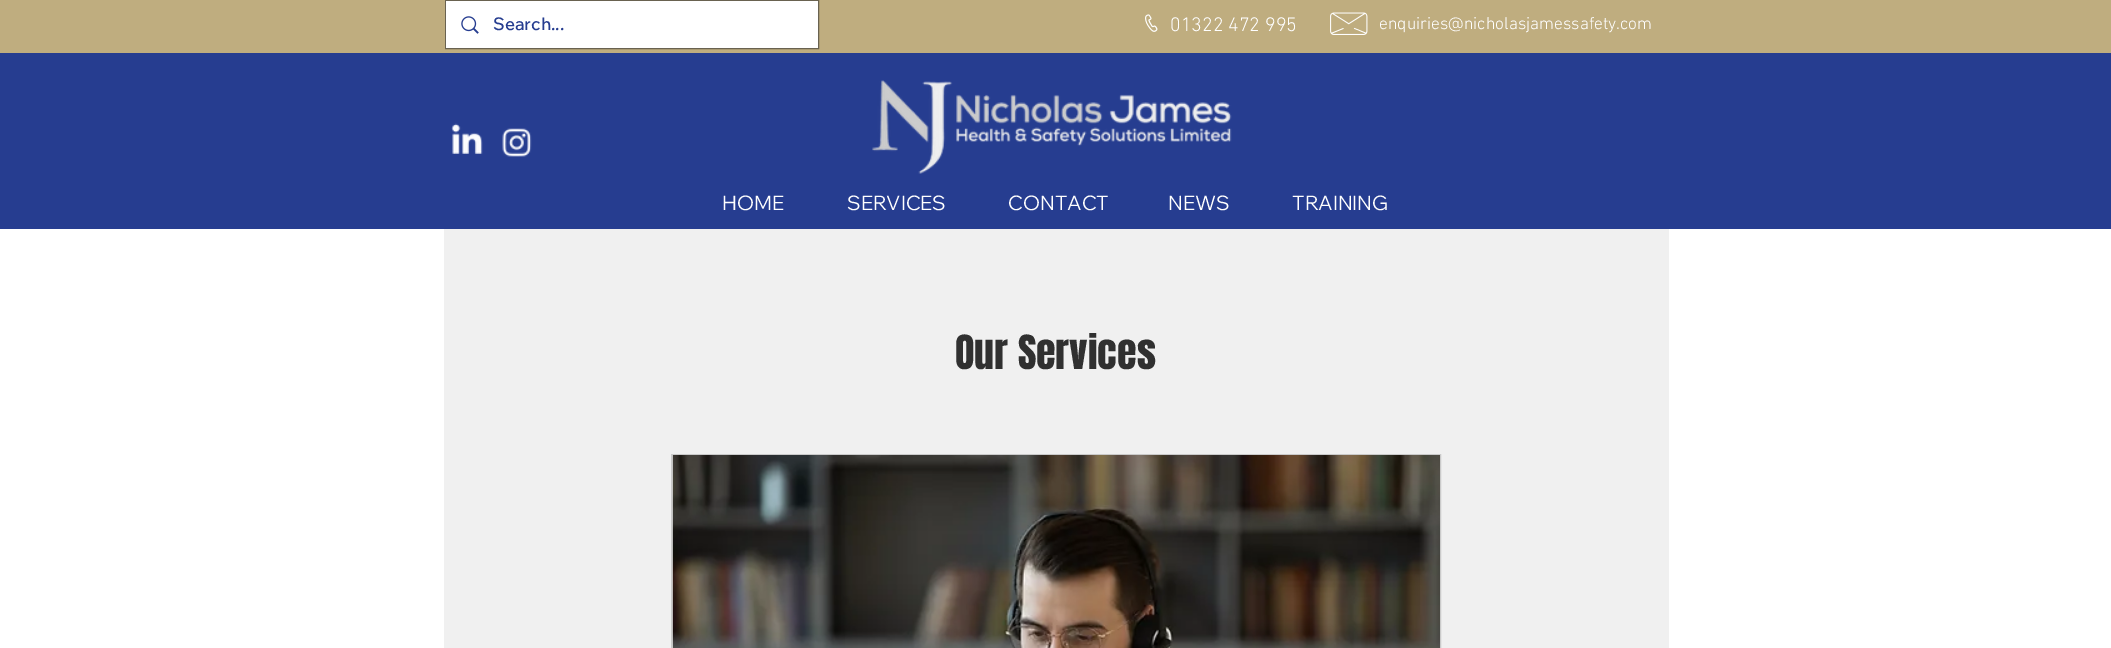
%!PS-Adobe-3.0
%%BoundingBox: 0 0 2111 648
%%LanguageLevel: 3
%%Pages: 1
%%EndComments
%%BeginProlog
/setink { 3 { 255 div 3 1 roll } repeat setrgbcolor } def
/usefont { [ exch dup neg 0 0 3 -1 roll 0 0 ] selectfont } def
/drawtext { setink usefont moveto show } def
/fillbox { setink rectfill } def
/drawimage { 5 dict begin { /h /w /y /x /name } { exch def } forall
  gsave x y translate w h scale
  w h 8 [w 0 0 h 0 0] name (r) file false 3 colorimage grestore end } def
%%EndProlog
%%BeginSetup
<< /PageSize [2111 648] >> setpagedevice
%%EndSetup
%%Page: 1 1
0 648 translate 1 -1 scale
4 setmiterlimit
0 0 2111 648 255 255 255 fillbox
0 0 2111 53 191 173 127 fillbox
105 98 80 setink
445.5 0.5 373 48 rectstroke
446 1 372 47 255 255 255 fillbox
(assets/img1.rgb) 461 16 18 18 drawimage
(Search...) 493 30 /WixMadeforText-Medium 17.5 38 61 144 drawtext
(assets/img2.rgb) 1145 14 13 18 drawimage
(01322 472 995) 1170 31 /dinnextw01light-Light 20 255 255 255 drawtext
(assets/img3.rgb) 1330 12 38 23 drawimage
(enquiries@nicholasjamessafety.com) 1379 29 /dinnextw01light-Light 17.5 255 255 255 drawtext
0 53 2111 176 38 61 144 fillbox
(assets/img4.rgb) 451 123 32 31 drawimage
(assets/img5.rgb) 502 128 30 29 drawimage
(assets/img6.rgb) 872 80 360 94 drawimage
(HOME) 722 210 /WixMadeforDisplay-Regular 20 255 255 255 drawtext
(SERVICES) 847 210 /WixMadeforDisplay-Regular 20 255 255 255 drawtext
(CONTACT) 1008 210 /WixMadeforDisplay-Regular 20 255 255 255 drawtext
(NEWS) 1168 210 /WixMadeforDisplay-Regular 20 255 255 255 drawtext
(TRAINING) 1292 210 /WixMadeforDisplay-Regular 20 255 255 255 drawtext
444 229 1225 419 240 240 240 fillbox
(Our Services) 955 369 /Anton-Regular 40 48 48 48 drawtext
202 202 202 setink
671.5 454.5 769 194 rectstroke
(assets/img7.rgb) 672 455 768 193 drawimage
showpage
%%EOF
